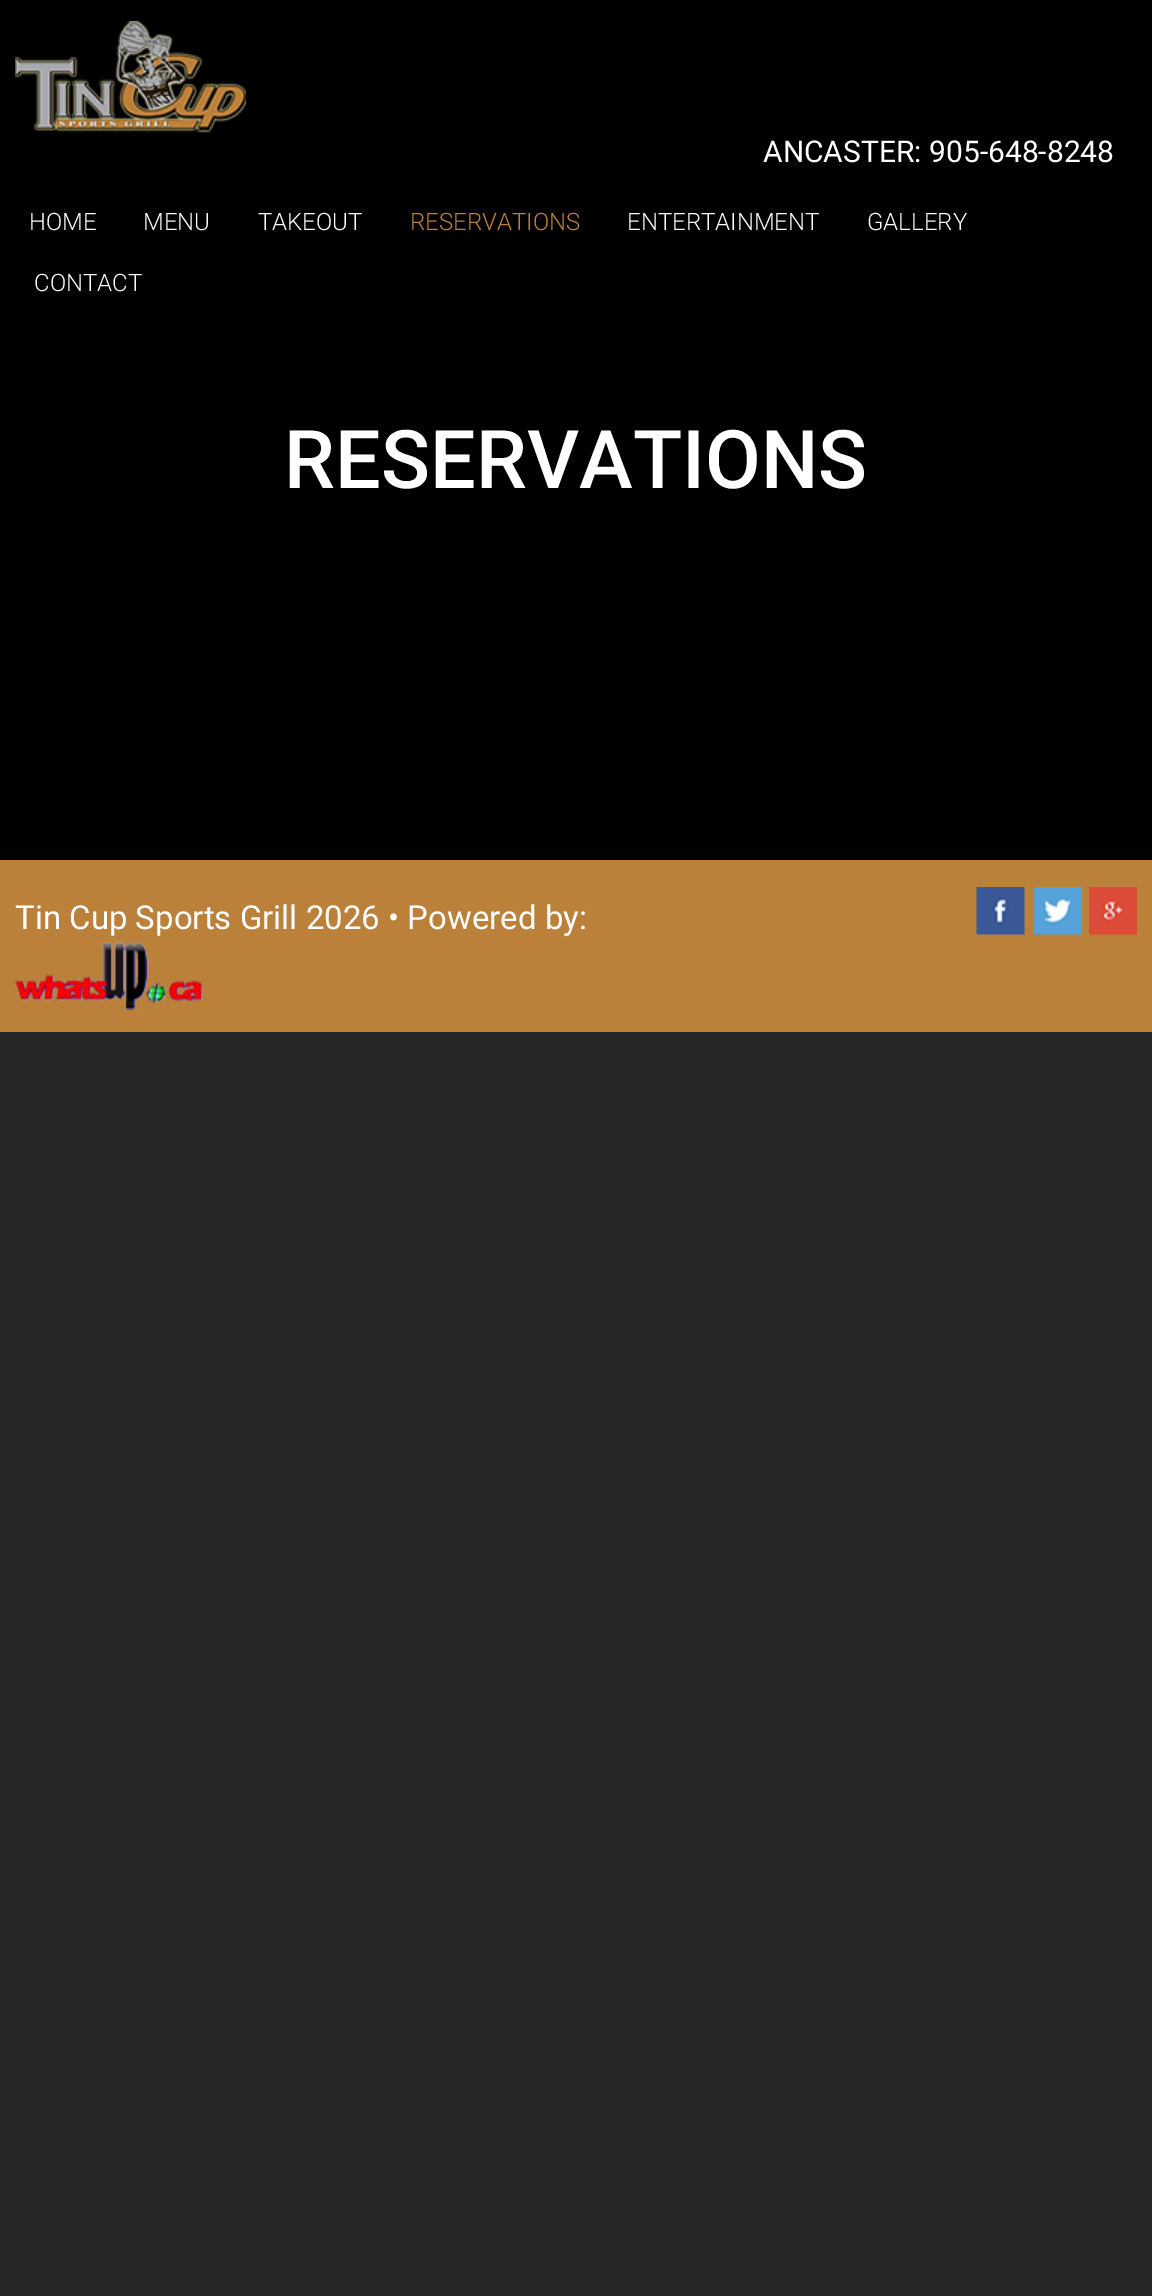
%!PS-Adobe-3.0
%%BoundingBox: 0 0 1152 2296
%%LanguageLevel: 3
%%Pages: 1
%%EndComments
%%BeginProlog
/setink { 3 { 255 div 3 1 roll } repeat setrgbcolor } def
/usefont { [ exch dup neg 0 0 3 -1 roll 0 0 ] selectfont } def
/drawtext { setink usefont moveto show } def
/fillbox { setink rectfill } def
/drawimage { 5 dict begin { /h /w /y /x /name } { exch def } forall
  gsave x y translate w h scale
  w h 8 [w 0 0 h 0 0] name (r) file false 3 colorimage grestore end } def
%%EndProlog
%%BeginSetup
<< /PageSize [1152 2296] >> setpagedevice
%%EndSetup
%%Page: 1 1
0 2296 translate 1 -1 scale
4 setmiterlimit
0 0 1152 2296 37 39 40 fillbox
0 0 1152 860 0 0 0 fillbox
(assets/img1.rgb) 15 21 231 112 drawimage
(ANCASTER: 905-648-8248) 763 162 /Roboto-Regular 30 255 255 255 drawtext
(HOME) 29 230 /Roboto-Light 24 255 255 255 drawtext
(MENU) 143 230 /Roboto-Light 24 255 255 255 drawtext
(TAKEOUT) 258 230 /Roboto-Light 24 255 255 255 drawtext
(RESERVATIONS) 410 230 /Roboto-Light 24 187 129 59 drawtext
(ENTERTAINMENT) 627 230 /Roboto-Light 24 255 255 255 drawtext
(GALLERY) 867 230 /Roboto-Light 24 255 255 255 drawtext
(CONTACT) 34 291 /Roboto-Light 24 255 255 255 drawtext
(RESERVATIONS) 284 488 /Roboto-Medium 81 255 255 255 drawtext
0 860 1152 172 187 129 59 fillbox
(Tin Cup Sports Grill 2026 • Powered by:) 15 929 /Roboto-Regular 33 255 255 255 drawtext
(assets/img2.rgb) 15 941 188 69 drawimage
(assets/img3.rgb) 976 887 49 48 drawimage
(assets/img4.rgb) 1033 887 49 48 drawimage
(assets/img5.rgb) 1089 887 48 48 drawimage
showpage
%%EOF
